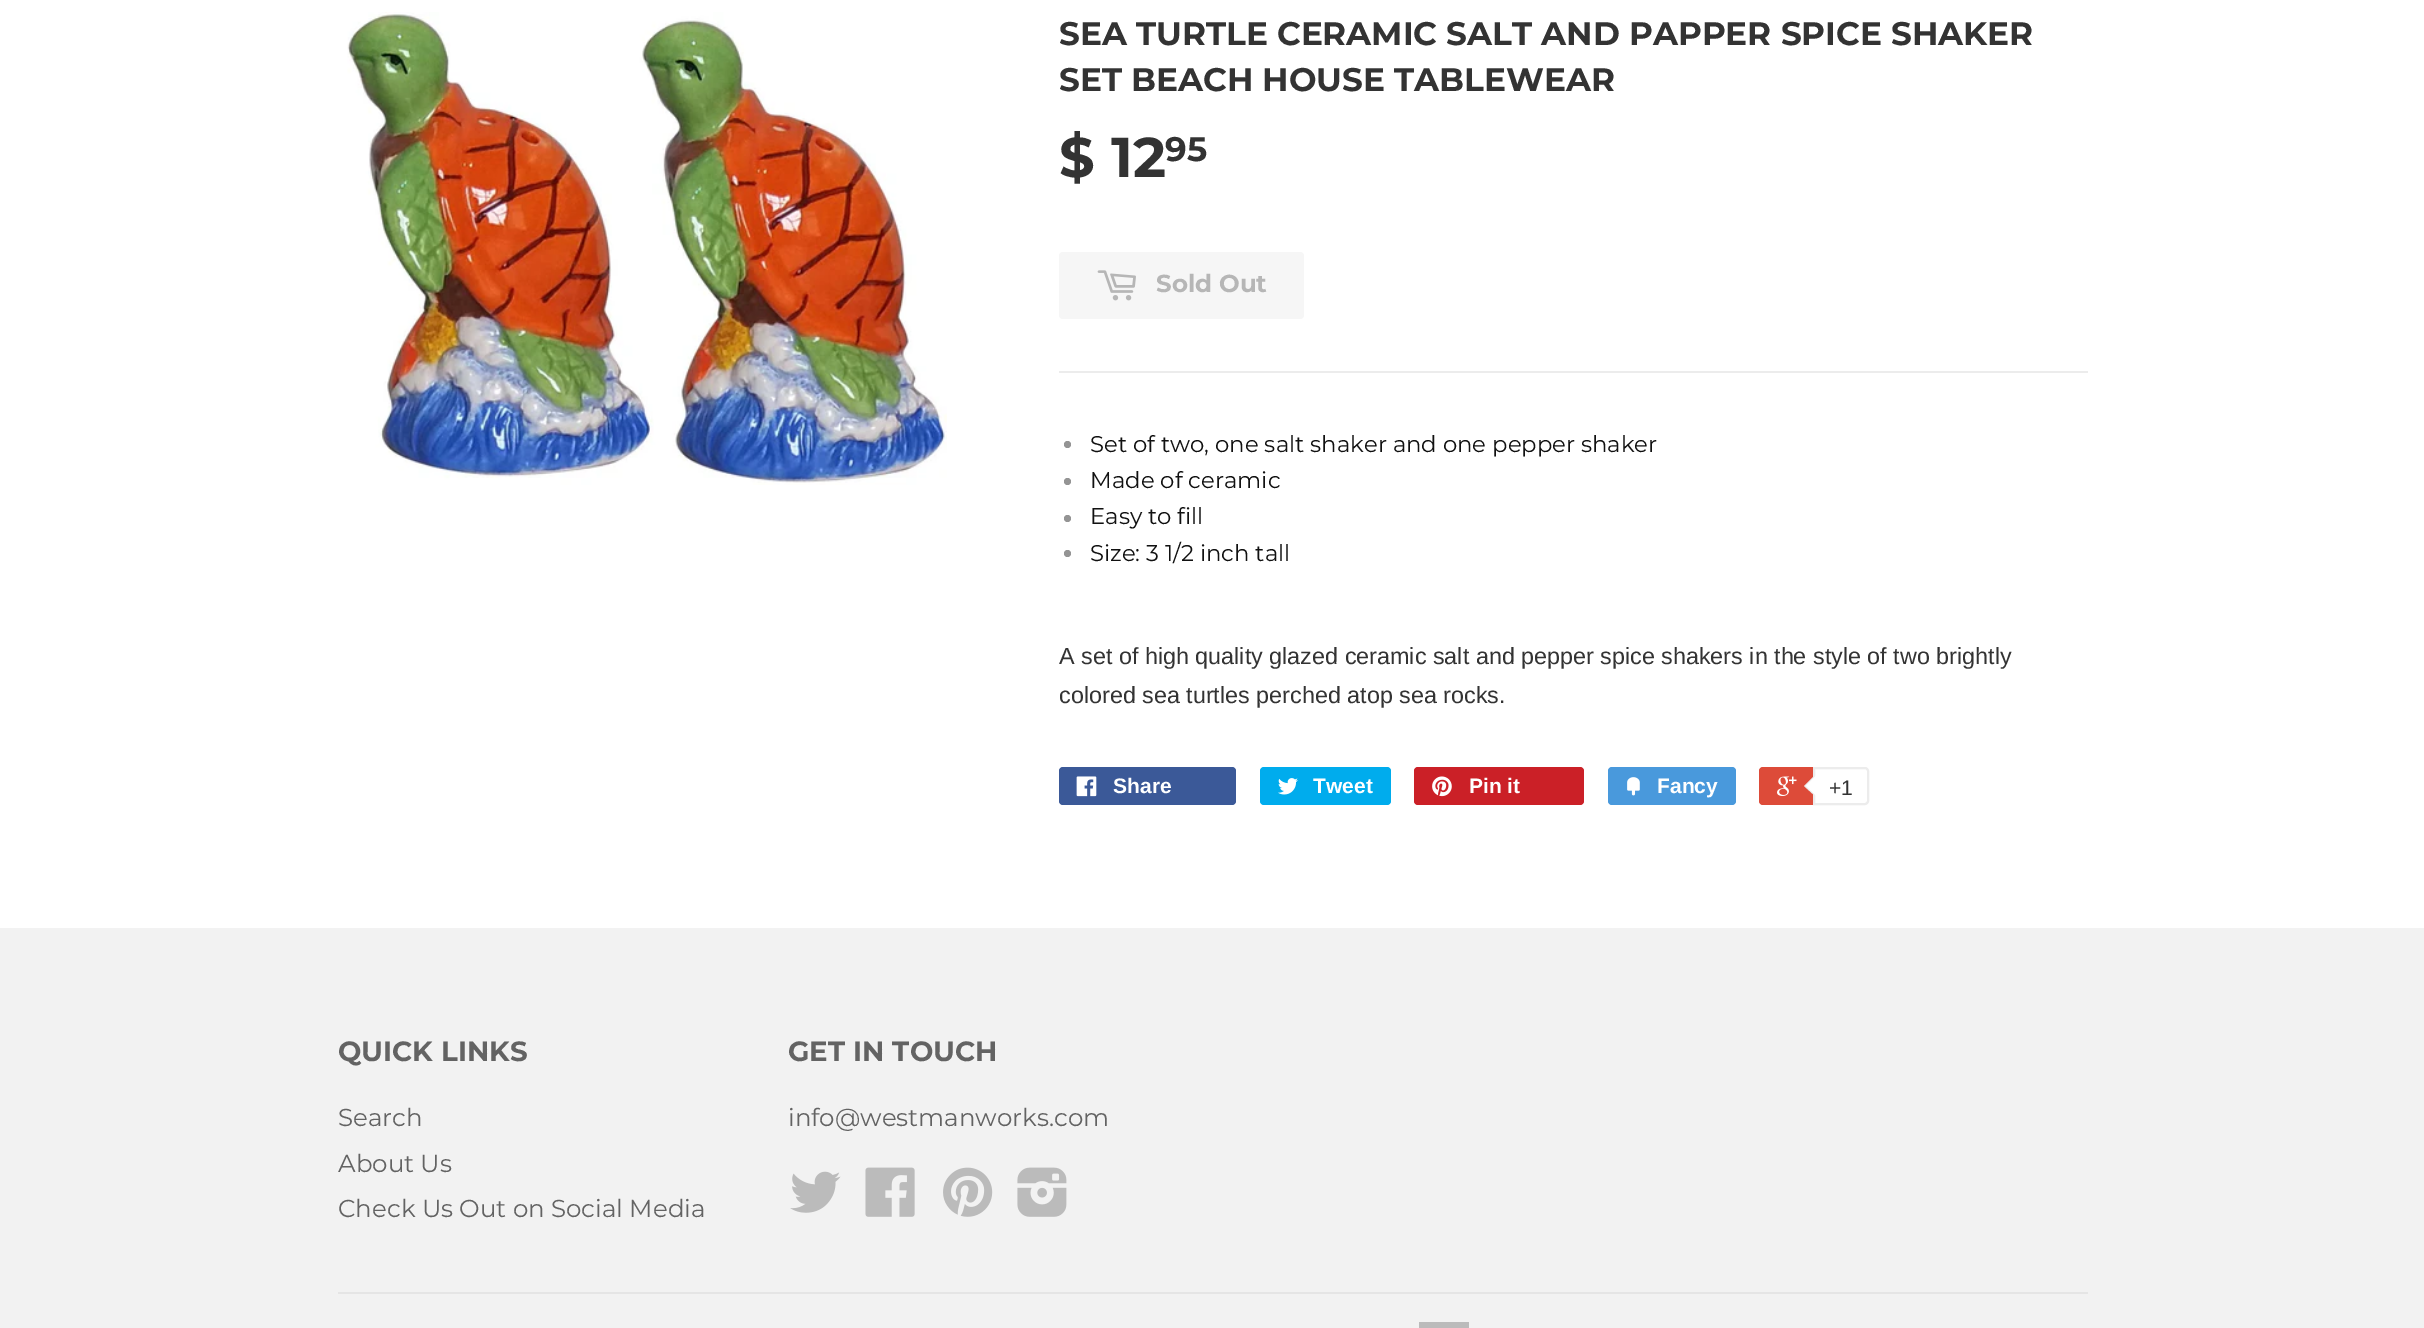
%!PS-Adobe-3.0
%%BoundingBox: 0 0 2424 1328
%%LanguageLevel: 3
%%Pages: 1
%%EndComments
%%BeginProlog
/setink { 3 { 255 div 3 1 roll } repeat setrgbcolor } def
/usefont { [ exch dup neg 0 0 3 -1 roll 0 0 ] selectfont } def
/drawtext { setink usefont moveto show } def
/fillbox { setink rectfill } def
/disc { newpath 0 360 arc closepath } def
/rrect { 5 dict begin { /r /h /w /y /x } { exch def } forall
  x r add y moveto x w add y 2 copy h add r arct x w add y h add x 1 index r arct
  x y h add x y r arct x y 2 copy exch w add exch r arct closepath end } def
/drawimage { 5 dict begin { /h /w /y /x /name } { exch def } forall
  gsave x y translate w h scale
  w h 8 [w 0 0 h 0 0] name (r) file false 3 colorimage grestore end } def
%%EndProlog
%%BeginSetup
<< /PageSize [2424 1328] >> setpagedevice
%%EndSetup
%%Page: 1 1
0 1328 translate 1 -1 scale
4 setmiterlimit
0 0 2424 1328 255 255 255 fillbox
(assets/img1.rgb) 347 12 600 473 drawimage
(SEA TURTLE CERAMIC SALT AND PAPPER SPICE SHAKER) 1059 45 /Montserrat-Bold 32.65 51 51 51 drawtext
(SET BEACH HOUSE TABLEWEAR) 1059 91 /Montserrat-Bold 32.65 51 51 51 drawtext
($ 12) 1059 177 /Montserrat-Bold 56 51 51 51 drawtext
(95) 1165 161 /Montserrat-Bold 34 51 51 51 drawtext
246 246 246 setink
1059 252 245 67 4 rrect fill
(assets/img2.rgb) 1097 270 39 31 drawimage
(Sold Out) 1156 292 /Montserrat-Bold 24.5 182 182 182 drawtext
1059 371 1029 2 236 236 236 fillbox
148 148 148 setink
1067.5 444.5 3.5 disc fill
(Set of two, one salt shaker and one pepper shaker) 1090 452 /Montserrat-Regular 22.75 17 17 17 drawtext
148 148 148 setink
1067.5 481.5 3.5 disc fill
(Made of ceramic) 1090 488 /Montserrat-Regular 22.75 17 17 17 drawtext
148 148 148 setink
1067.5 518.5 3.5 disc fill
(Easy to fill) 1090 524 /Montserrat-Regular 22.75 17 17 17 drawtext
148 148 148 setink
1067.5 553.5 3.5 disc fill
(Size: 3 1/2 inch tall) 1090 561 /Montserrat-Regular 22.75 17 17 17 drawtext
(A set of high quality glazed ceramic salt and pepper spice shakers in the style of two brightly) 1059 664 /LiberationSans-Regular 23.35 51 51 51 drawtext
(colored sea turtles perched atop sea rocks.) 1059 703 /LiberationSans-Regular 23.35 51 51 51 drawtext
59 89 152 setink
1059 767 177 38 4 rrect fill
(assets/img3.rgb) 1076 776 21 21 drawimage
(Share) 1113 793 /LiberationSans-Bold 21 255 255 255 drawtext
0 172 237 setink
1260 767 131 38 4 rrect fill
(assets/img4.rgb) 1278 778 20 17 drawimage
(Tweet) 1313 793 /LiberationSans-Bold 21 255 255 255 drawtext
203 32 39 setink
1414 767 170 38 4 rrect fill
(assets/img5.rgb) 1432 776 20 21 drawimage
(Pin it) 1469 793 /LiberationSans-Bold 21 255 255 255 drawtext
73 153 220 setink
1608 767 128 38 4 rrect fill
(assets/img6.rgb) 1627 777 13 19 drawimage
(Fancy) 1657 793 /LiberationSans-Bold 21 255 255 255 drawtext
221 75 57 setink
1759 767 107 38 4 rrect fill
(assets/img7.rgb) 1777 776 20 20 drawimage
255 255 255 setink
1814 768 moveto 1865 768 lineto 1866.5 768 1868 769.5 1868 771 curveto 1868 801 lineto 1868 802.5 1866.5 804 1865 804 curveto 1814 804 lineto closepath gsave fill grestore
236 236 236 setink
2 setlinewidth
stroke
1815 775 moveto 1815 796 lineto 1804 786 lineto closepath fill
255 255 255 setink
1816.5 775 moveto 1816.5 796 lineto 1806 786 lineto closepath fill
(+1) 1829 795 /LiberationSans-Regular 21 51 51 51 drawtext
0 928 2424 400 242 242 242 fillbox
(QUICK LINKS) 338 1061 /Montserrat-Bold 27.75 99 99 99 drawtext
(Search) 338 1126 /Montserrat-Regular 24.5 99 99 99 drawtext
(About Us) 338 1172 /Montserrat-Regular 24.5 99 99 99 drawtext
(Check Us Out on Social Media) 338 1217 /Montserrat-Regular 24.5 99 99 99 drawtext
(GET IN TOUCH) 788 1061 /Montserrat-Bold 27.75 99 99 99 drawtext
(info@westmanworks.com) 788 1126 /Montserrat-Regular 24.5 99 99 99 drawtext
(assets/img8.rgb) 790 1171 51 42 drawimage
(assets/img9.rgb) 865 1167 50 50 drawimage
(assets/img10.rgb) 943 1167 50 50 drawimage
(assets/img11.rgb) 1017 1167 50 50 drawimage
338 1292 1750 2 229 229 229 fillbox
1419 1322 50 6 187 187 187 fillbox
showpage
%%EOF
